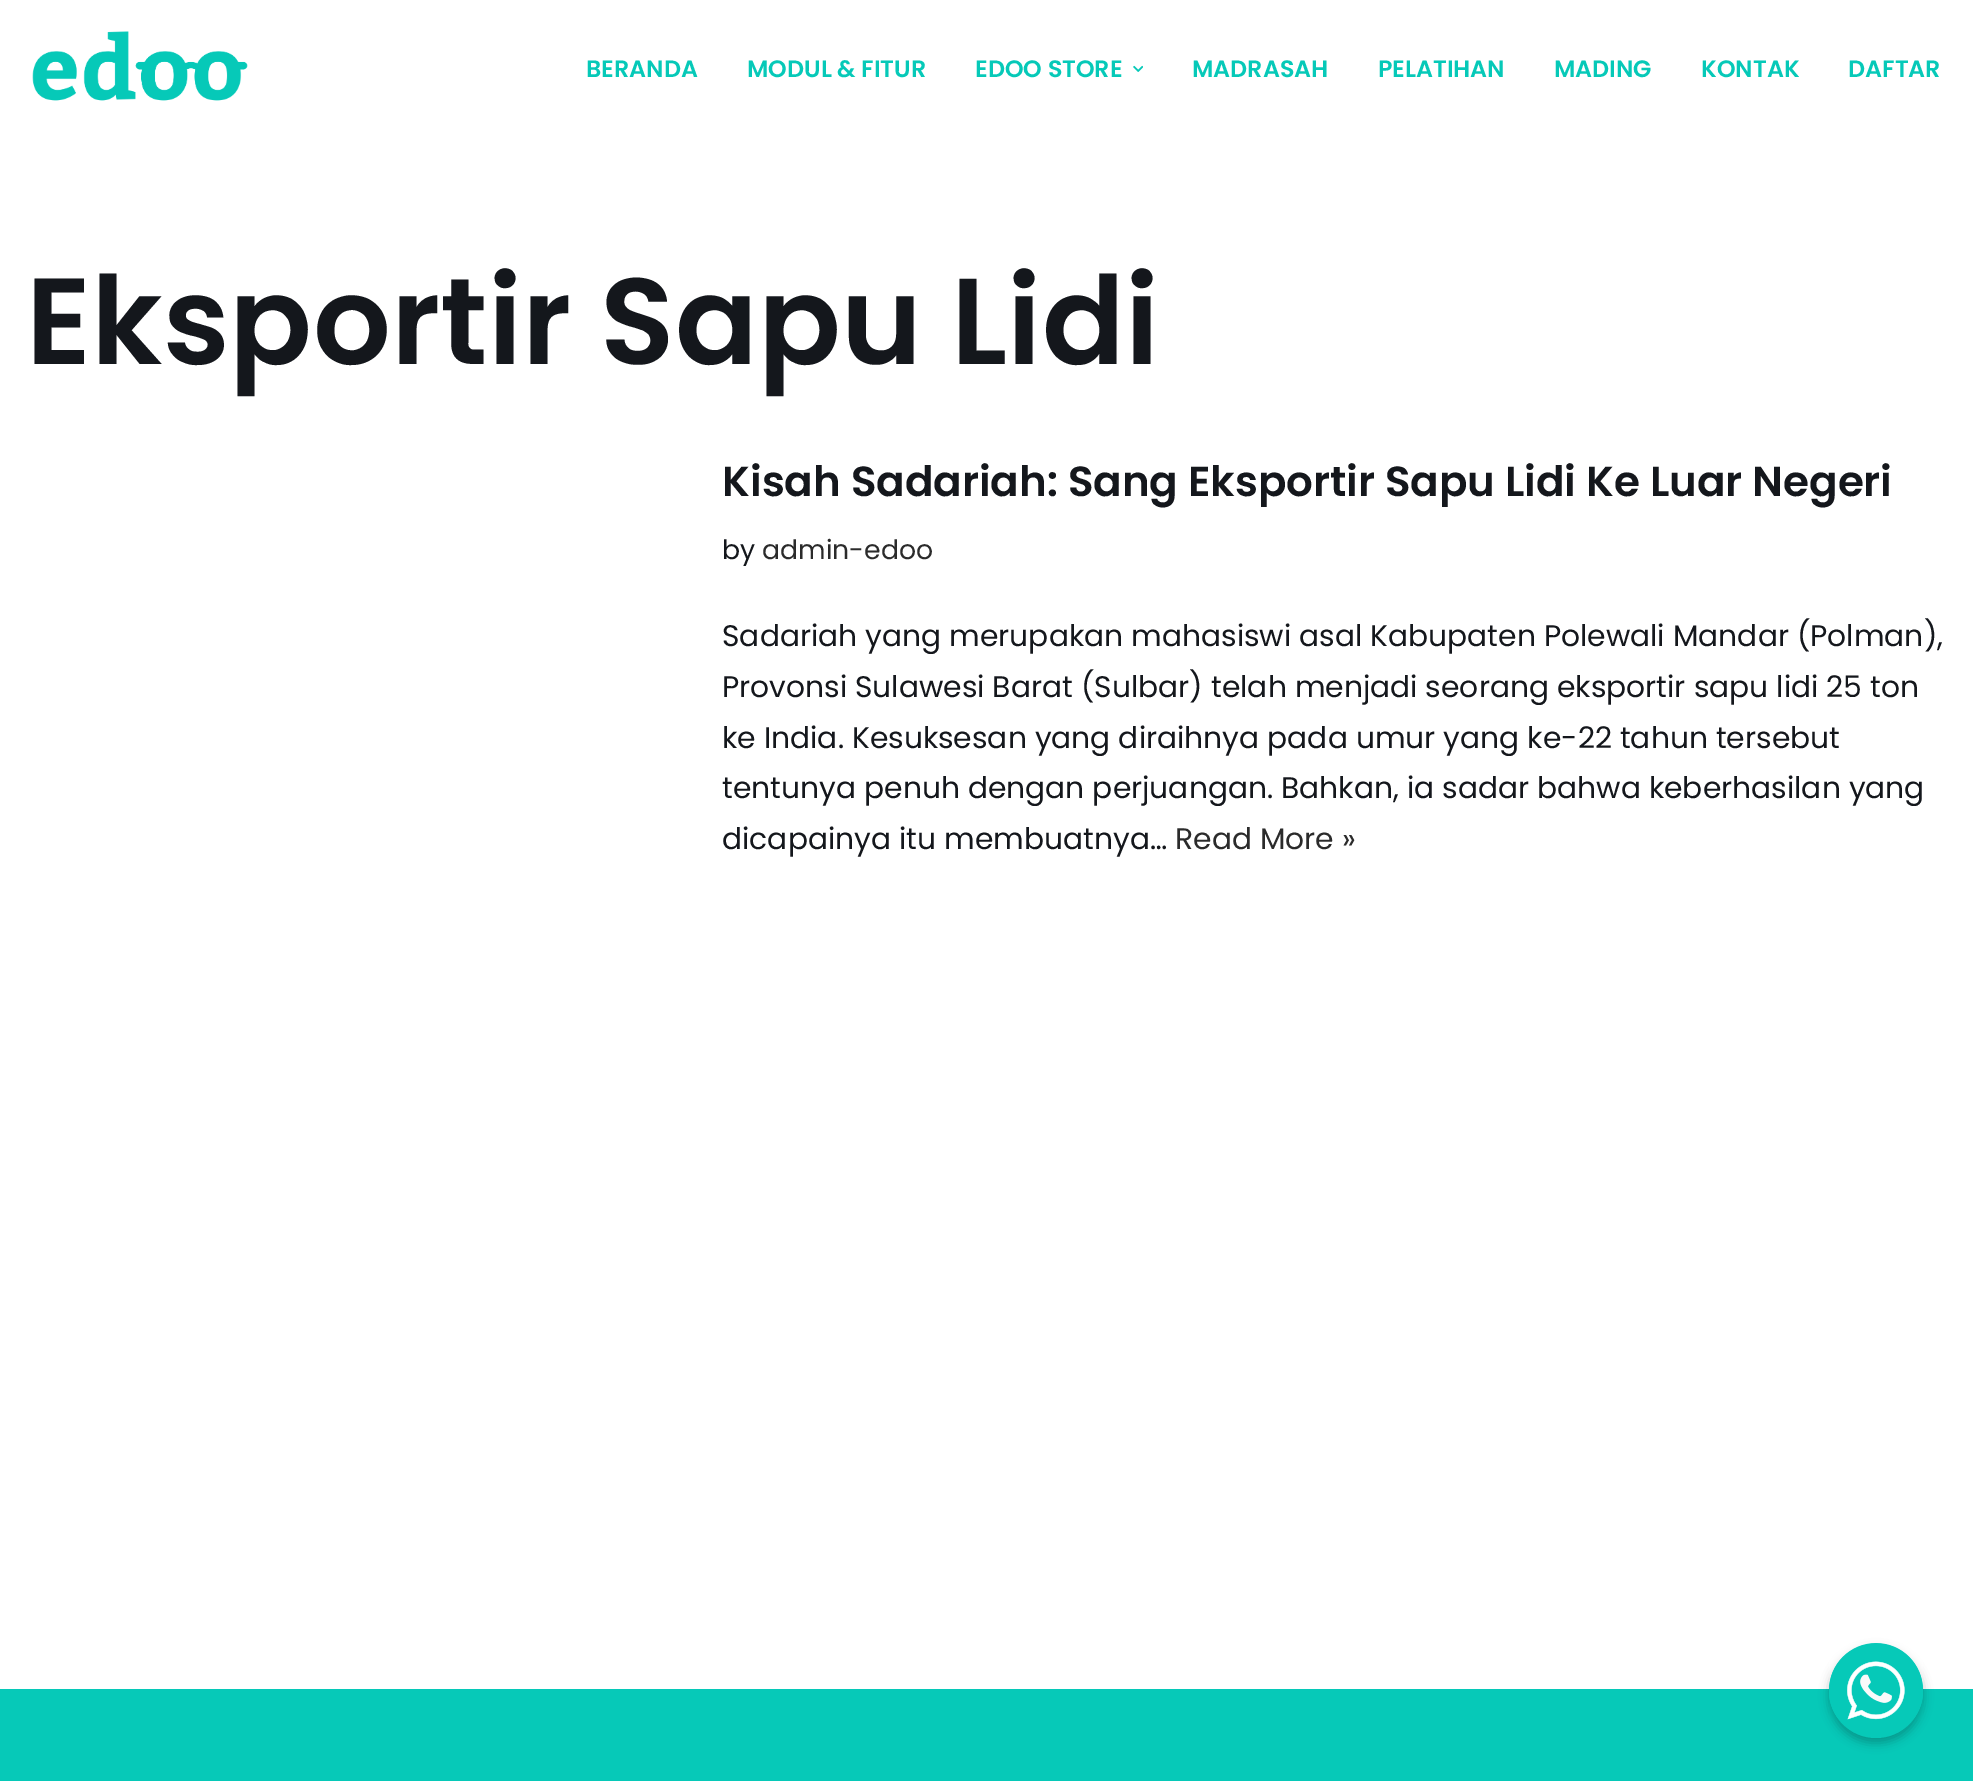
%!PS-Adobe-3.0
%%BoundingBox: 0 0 1973 1781
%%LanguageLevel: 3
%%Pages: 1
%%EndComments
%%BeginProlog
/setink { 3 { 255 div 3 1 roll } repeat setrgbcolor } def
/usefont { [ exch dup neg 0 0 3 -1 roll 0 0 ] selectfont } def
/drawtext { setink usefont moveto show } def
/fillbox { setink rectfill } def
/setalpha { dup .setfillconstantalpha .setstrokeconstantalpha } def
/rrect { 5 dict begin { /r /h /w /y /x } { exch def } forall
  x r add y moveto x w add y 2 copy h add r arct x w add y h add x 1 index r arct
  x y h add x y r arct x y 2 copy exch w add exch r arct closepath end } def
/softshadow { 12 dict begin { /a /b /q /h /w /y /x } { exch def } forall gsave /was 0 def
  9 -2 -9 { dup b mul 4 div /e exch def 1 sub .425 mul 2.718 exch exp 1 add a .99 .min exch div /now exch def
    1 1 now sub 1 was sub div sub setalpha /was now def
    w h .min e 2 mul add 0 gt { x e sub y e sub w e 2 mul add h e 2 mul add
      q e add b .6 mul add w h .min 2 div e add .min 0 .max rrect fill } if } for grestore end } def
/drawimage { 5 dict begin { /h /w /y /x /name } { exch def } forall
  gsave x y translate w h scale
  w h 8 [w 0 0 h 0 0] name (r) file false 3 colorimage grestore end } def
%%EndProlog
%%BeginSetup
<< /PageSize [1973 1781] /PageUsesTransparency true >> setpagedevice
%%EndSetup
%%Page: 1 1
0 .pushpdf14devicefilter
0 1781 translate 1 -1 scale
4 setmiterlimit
0 0 1973 1781 255 255 255 fillbox
(assets/img1.rgb) 32 31 216 70 drawimage
(BERANDA) 586 77 /Poppins-SemiBold 23.75 6 201 184 drawtext
(MODUL & FITUR) 747 77 /Poppins-SemiBold 23.75 6 201 184 drawtext
(EDOO STORE) 975 77 /Poppins-SemiBold 23.75 6 201 184 drawtext
(assets/img2.rgb) 1133 65 10 7 drawimage
(MADRASAH) 1192 77 /Poppins-SemiBold 23.75 6 201 184 drawtext
(PELATIHAN) 1378 77 /Poppins-SemiBold 23.75 6 201 184 drawtext
(MADING) 1554 77 /Poppins-SemiBold 23.75 6 201 184 drawtext
(KONTAK) 1701 77 /Poppins-SemiBold 23.75 6 201 184 drawtext
(DAFTAR) 1848 77 /Poppins-SemiBold 23.75 6 201 184 drawtext
(Eksportir Sapu Lidi) 26 364 /Poppins-SemiBold 122.5 20 23 28 drawtext
(Kisah Sadariah: Sang Eksportir Sapu Lidi Ke Luar Negeri) 722 496 /Poppins-SemiBold 42 20 23 28 drawtext
(by) 722 559 /Poppins-Regular 26.75 20 23 28 drawtext
(admin-edoo) 762 559 /Poppins-Regular 26.75 43 43 43 drawtext
(Sadariah yang merupakan mahasiswi asal Kabupaten Polewali Mandar \(Polman\),) 722 646 /Poppins-Regular 29.75 20 23 28 drawtext
(Provonsi Sulawesi Barat \(Sulbar\) telah menjadi seorang eksportir sapu lidi 25 ton) 722 697 /Poppins-Regular 29.75 20 23 28 drawtext
(ke India. Kesuksesan yang diraihnya pada umur yang ke-22 tahun tersebut) 722 748 /Poppins-Regular 29.75 20 23 28 drawtext
(tentunya penuh dengan perjuangan. Bahkan, ia sadar bahwa keberhasilan yang) 722 798 /Poppins-Regular 29.75 20 23 28 drawtext
(dicapainya itu membuatnya…) 722 849 /Poppins-Regular 29.75 20 23 28 drawtext
(Read More ») 1175 849 /Poppins-Regular 29.75 43 43 43 drawtext
0 1689 1973 92 6 201 184 fillbox
0 0 0 setink
1829 1649 94 94 47 5 0.25 softshadow
6 201 184 setink
1829 1643 94 95 47 rrect fill
(assets/img3.rgb) 1829 1643 94 77 drawimage
.poppdf14devicefilter showpage
%%EOF
